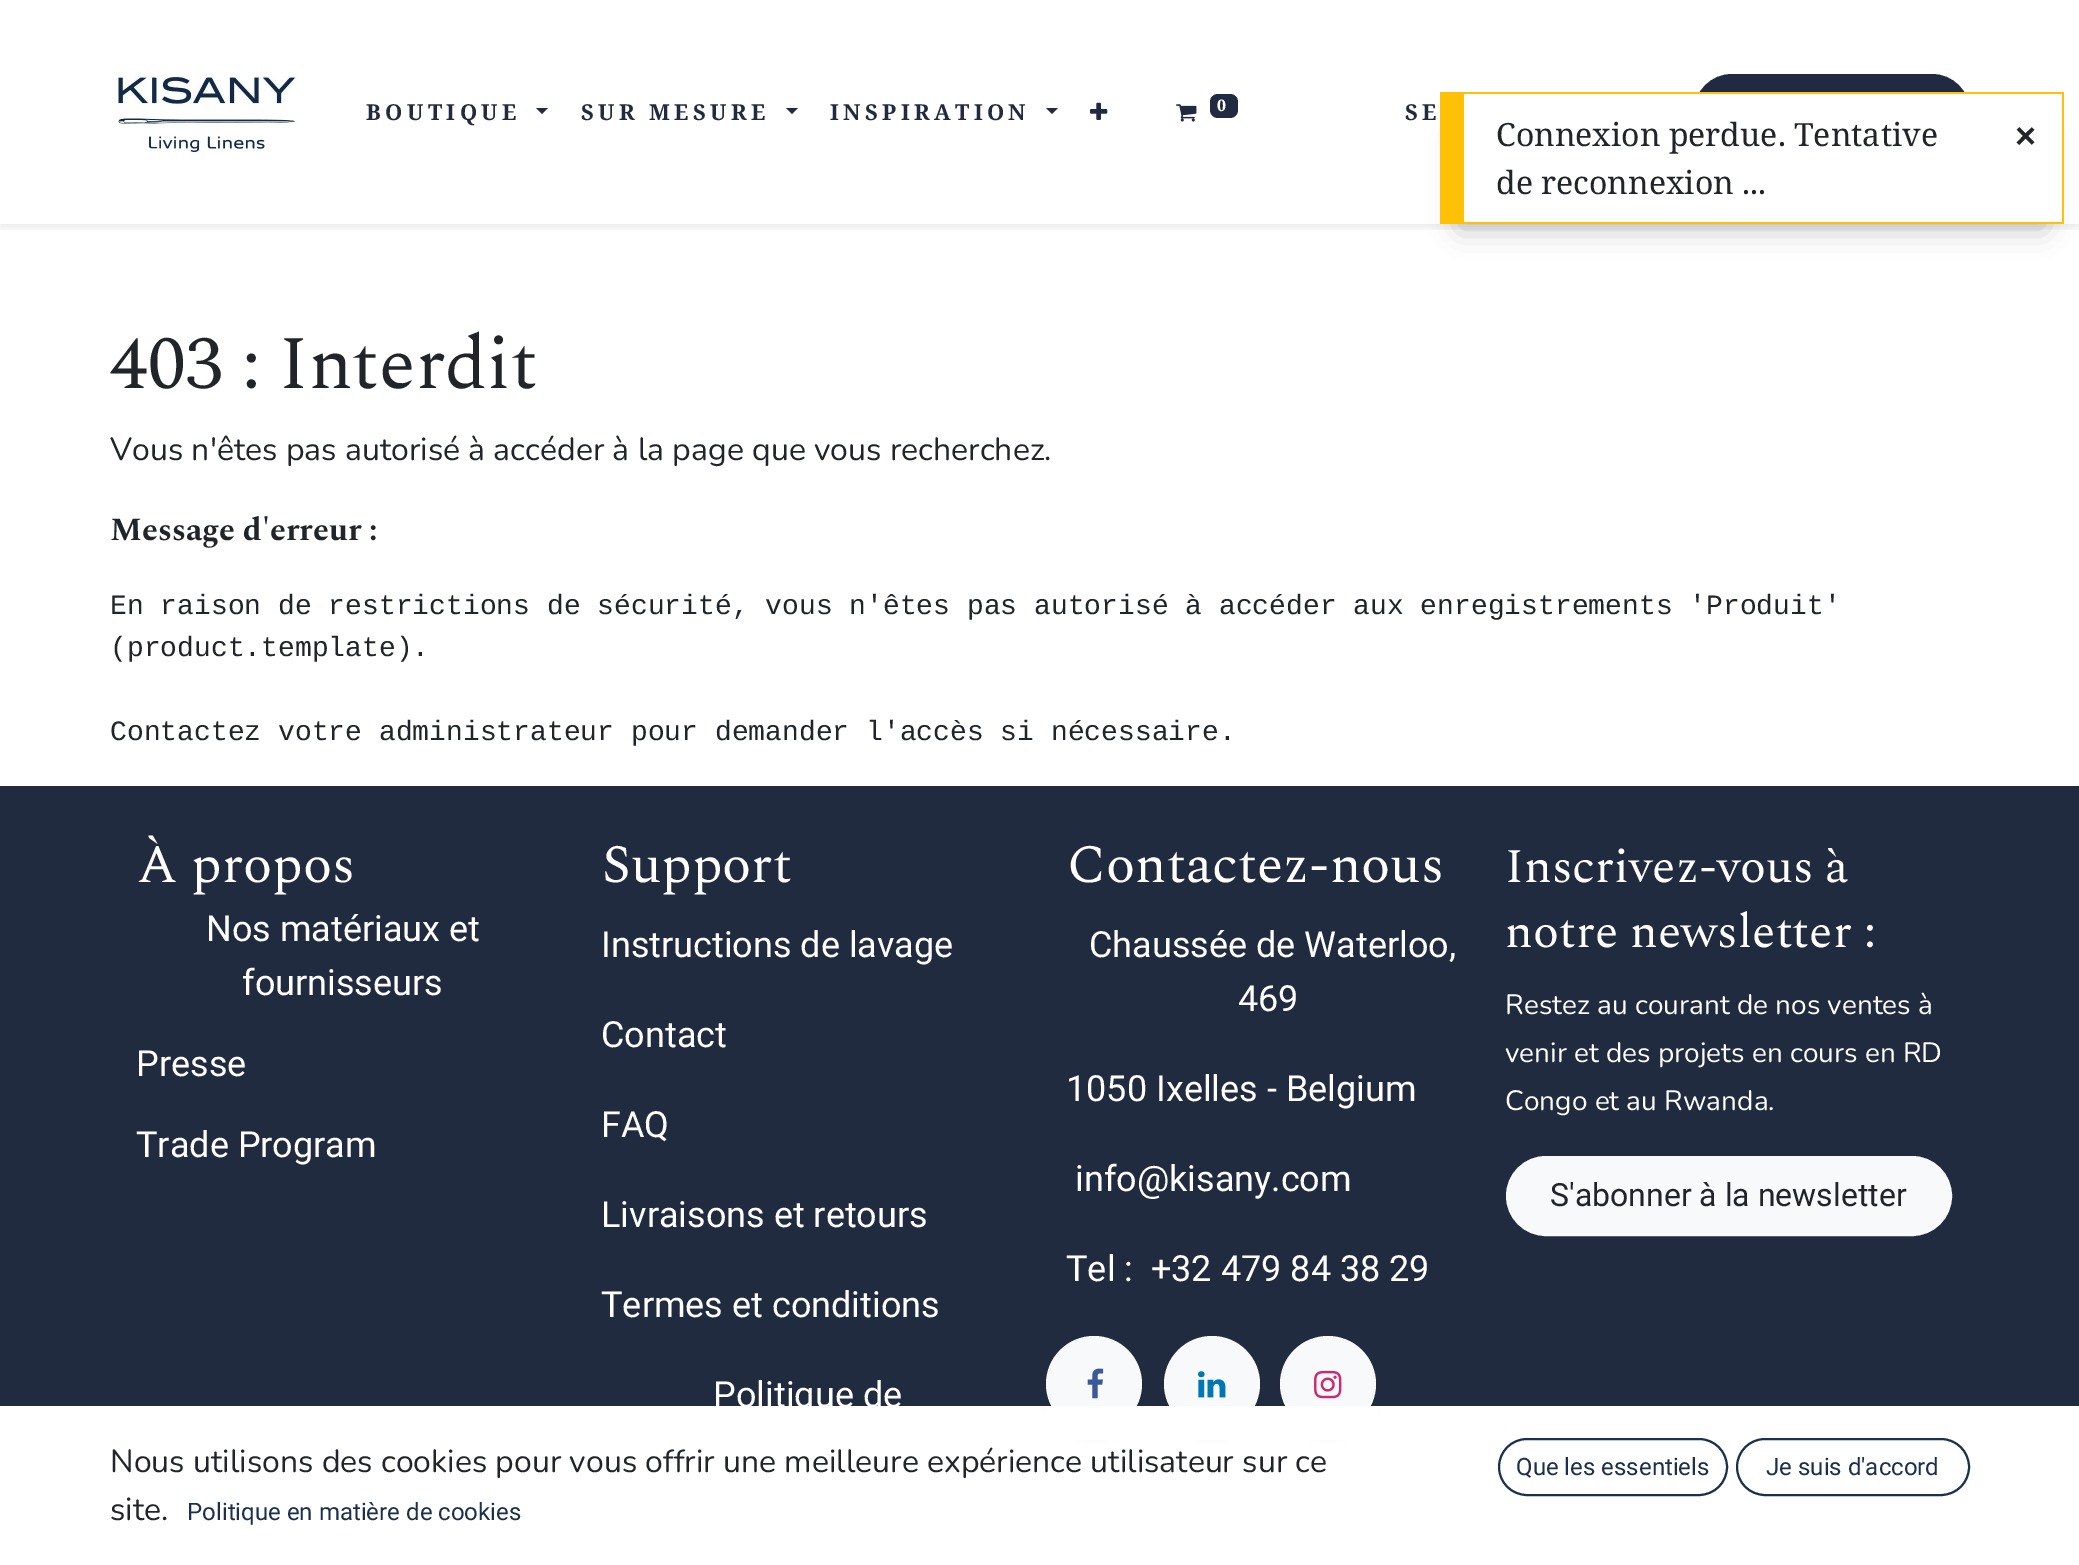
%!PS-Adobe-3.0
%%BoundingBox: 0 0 2079 1565
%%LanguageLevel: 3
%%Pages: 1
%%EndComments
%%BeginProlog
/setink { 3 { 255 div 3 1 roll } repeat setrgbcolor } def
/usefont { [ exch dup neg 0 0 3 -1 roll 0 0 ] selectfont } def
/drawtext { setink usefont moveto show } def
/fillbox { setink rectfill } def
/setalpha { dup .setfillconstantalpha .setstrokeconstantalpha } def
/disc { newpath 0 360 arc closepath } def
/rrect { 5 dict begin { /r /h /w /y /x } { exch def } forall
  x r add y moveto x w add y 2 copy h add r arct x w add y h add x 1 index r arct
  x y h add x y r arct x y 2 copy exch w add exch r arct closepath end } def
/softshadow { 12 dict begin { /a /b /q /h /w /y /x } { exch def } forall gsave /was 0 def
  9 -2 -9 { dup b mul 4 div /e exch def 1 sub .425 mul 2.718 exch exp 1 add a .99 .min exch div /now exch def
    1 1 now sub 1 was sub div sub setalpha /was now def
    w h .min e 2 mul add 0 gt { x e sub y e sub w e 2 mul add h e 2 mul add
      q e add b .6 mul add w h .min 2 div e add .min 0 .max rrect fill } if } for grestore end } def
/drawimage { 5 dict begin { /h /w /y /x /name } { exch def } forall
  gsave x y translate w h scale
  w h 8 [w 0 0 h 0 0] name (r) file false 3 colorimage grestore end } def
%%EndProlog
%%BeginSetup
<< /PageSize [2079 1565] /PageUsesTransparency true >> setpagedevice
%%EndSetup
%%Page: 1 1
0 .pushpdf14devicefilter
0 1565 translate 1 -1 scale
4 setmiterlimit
0 0 2079 1565 255 255 255 fillbox
gsave
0 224 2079 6 rectclip
0 0 0 setink
0 4 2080 224 0 4 0.07 softshadow
grestore
(assets/img1.rgb) 118 72 179 81 drawimage
/NotoSerif-Bold 22 usefont
33 42 64 setink
366 120 moveto 4.4 0 (BOUTIQUE) ashow
536 108 moveto 548 108 lineto 542 114 lineto closepath fill
581 120 moveto 4.4 0 (SUR MESURE) ashow
786 108 moveto 798 108 lineto 792 114 lineto closepath fill
830 120 moveto 4.4 0 (INSPIRATION) ashow
1046 108 moveto 1058 108 lineto 1052 114 lineto closepath fill
(assets/img2.rgb) 1090 102 18 18 drawimage
(assets/img3.rgb) 1176 104 21 18 drawimage
1210 94 28 24 8 rrect fill
/NotoSerif-Bold 16 usefont
255 255 255 setink
1217 111 moveto 4.4 0 (0) ashow
/NotoSerif-Bold 22 usefont
33 42 64 setink
1405 120 moveto 4.4 0 (SE) ashow
1695 75 274 74 37 rrect gsave fill grestore
2 setlinewidth
stroke
(403 : Interdit) 110 388 /Spectral-Regular 75.25 33 37 41 drawtext
(Vous n'êtes pas autorisé à accéder à la page que vous recherchez.) 110 460 /Nunito-ExtraLight 32 33 37 41 drawtext
(Message d'erreur :) 110 540 /Spectral-Bold 32 33 37 41 drawtext
(En raison de restrictions de sécurité, vous n'êtes pas autorisé à accéder aux enregistrements 'Produit') 110 614 /LiberationMono-Regular 28 33 37 41 drawtext
(\(product.template\).) 110 656 /LiberationMono-Regular 28 33 37 41 drawtext
(Contactez votre administrateur pour demander l'accès si nécessaire.) 110 740 /LiberationMono-Regular 28 33 37 41 drawtext
0 786 2079 620 33 43 63 fillbox
(À propos) 137 882 /Spectral-Regular 54 255 255 255 drawtext
(Nos matériaux et) 206 941 /Roboto-Regular 36 255 255 255 drawtext
(fournisseurs) 242 995 /Roboto-Regular 36 255 255 255 drawtext
(Presse) 136 1076 /Roboto-Regular 36 255 255 255 drawtext
(Trade Program) 136 1157 /Roboto-Regular 36 255 255 255 drawtext
(Support) 602 882 /Spectral-Regular 54 255 255 255 drawtext
(Instructions de lavage) 601 957 /Roboto-Regular 36 255 255 255 drawtext
(Contact) 601 1047 /Roboto-Regular 36 255 255 255 drawtext
(FAQ) 601 1137 /Roboto-Regular 36 255 255 255 drawtext
(Livraisons et retours) 601 1227 /Roboto-Regular 36 255 255 255 drawtext
(Termes et conditions) 601 1317 /Roboto-Regular 36 255 255 255 drawtext
(Politique de) 713 1407 /Roboto-Regular 36 255 255 255 drawtext
(Contactez-nous) 1067 882 /Spectral-Regular 54 255 255 255 drawtext
(Chaussée de Waterloo,) 1089 957 /Roboto-Regular 36 255 255 255 drawtext
(469) 1238 1011 /Roboto-Regular 36 255 255 255 drawtext
(1050 Ixelles - Belgium) 1066 1101 /Roboto-Regular 36 255 255 255 drawtext
(info@kisany.com) 1075 1191 /Roboto-Regular 36 255 255 255 drawtext
(Tel :  +32 479 84 38 29) 1066 1281 /Roboto-Regular 36 255 255 255 drawtext
0 0 0 setink
1046 1340 96 96 48 4 0.07 softshadow
248 249 250 setink
1094 1384 48 disc fill
(assets/img4.rgb) 1087 1368 17 31 drawimage
0 0 0 setink
1164 1340 96 96 48 4 0.07 softshadow
248 249 250 setink
1212 1384 48 disc fill
(assets/img5.rgb) 1198 1371 28 27 drawimage
0 0 0 setink
1280 1340 96 96 48 4 0.07 softshadow
248 249 250 setink
1328 1384 48 disc fill
(assets/img6.rgb) 1314 1370 28 29 drawimage
(Inscrivez-vous à) 1505 882 /Spectral-Regular 48 255 255 255 drawtext
(notre newsletter :) 1505 947 /Spectral-Regular 48 255 255 255 drawtext
(Restez au courant de nos ventes à) 1505 1014 /Nunito-ExtraLight 28 255 255 255 drawtext
(venir et des projets en cours en RD) 1505 1062 /Nunito-ExtraLight 28 255 255 255 drawtext
(Congo et au Rwanda.) 1505 1110 /Nunito-ExtraLight 28 255 255 255 drawtext
248 249 250 setink
1507 1157 444 78 39 rrect gsave fill grestore
stroke
(S'abonner à la newsletter) 1550 1206 /Roboto-Regular 32 33 37 41 drawtext
1045 1406 332 34 255 255 255 fillbox
(Nous utilisons des cookies pour vous offrir une meilleure expérience utilisateur sur ce) 110 1472 /Nunito-ExtraLight 32 33 37 41 drawtext
(site.) 110 1520 /Nunito-ExtraLight 32 33 37 41 drawtext
(Politique en matière de cookies) 187 1520 /Roboto-Regular 24 26 48 76 drawtext
1499 1439 228 56 28 rrect stroke
(Que les essentiels) 1516 1475 /Roboto-Regular 24 26 48 76 drawtext
1737 1439 232 56 28 rrect stroke
(Je suis d'accord) 1766 1475 /Roboto-Regular 24 26 48 76 drawtext
0 0 0 setink
1460 136 584 92 0 14 0.25 softshadow
1464 94 598 128 255 255 255 fillbox
1464 92 600 2 255 193 7 fillbox
2062 92 2 132 255 193 7 fillbox
1464 222 600 2 255 193 7 fillbox
1440 92 24 132 255 193 7 fillbox
(Connexion perdue. Tentative) 1496 146 /NotoSerif-Regular 32 33 37 41 drawtext
(de reconnexion ...) 1496 194 /NotoSerif-Regular 32 33 37 41 drawtext
(×) 2015 148 /LiberationSans-Bold 36 33 37 41 drawtext
.poppdf14devicefilter showpage
%%EOF
